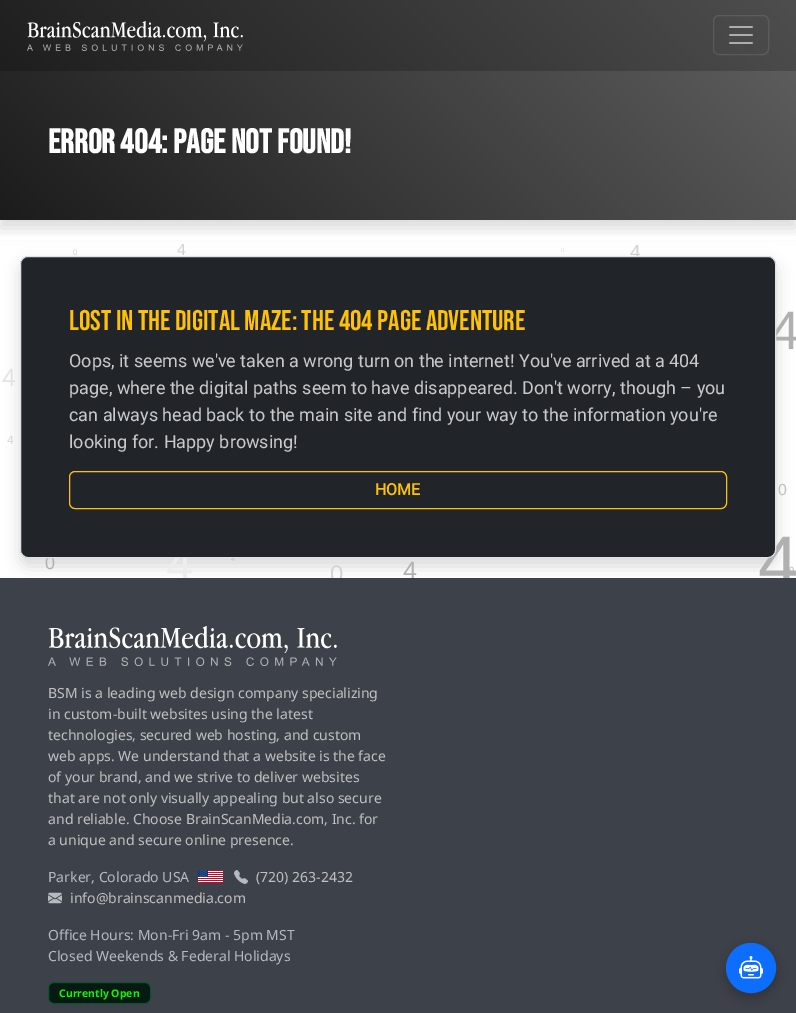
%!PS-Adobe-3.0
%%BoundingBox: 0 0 796 1013
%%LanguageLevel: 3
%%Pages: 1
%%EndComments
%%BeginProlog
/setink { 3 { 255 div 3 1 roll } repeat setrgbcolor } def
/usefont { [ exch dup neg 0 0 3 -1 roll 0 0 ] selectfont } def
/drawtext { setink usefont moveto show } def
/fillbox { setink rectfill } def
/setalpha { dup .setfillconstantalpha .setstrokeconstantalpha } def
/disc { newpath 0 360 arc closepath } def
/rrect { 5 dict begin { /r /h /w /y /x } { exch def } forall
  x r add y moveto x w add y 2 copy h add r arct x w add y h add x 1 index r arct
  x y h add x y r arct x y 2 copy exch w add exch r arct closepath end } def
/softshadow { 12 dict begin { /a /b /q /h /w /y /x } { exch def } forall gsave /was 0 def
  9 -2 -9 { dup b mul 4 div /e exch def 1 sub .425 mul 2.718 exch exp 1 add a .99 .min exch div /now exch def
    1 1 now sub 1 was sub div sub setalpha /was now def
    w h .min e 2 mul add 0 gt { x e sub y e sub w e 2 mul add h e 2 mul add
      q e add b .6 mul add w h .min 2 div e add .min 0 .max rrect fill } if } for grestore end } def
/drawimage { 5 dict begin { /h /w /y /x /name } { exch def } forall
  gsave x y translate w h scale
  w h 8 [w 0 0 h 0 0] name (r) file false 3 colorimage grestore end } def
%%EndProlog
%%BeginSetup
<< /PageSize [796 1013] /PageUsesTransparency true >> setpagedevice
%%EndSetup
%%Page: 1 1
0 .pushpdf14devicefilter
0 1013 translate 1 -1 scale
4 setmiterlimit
0 0 796 1013 255 255 255 fillbox
0 0 0 setink
0 8 796 220 0 8 0.15 softshadow
gsave 0 0 moveto 796 0 lineto 796 71 lineto 0 71 lineto closepath clip newpath
<< /ShadingType 2 /ColorSpace /DeviceRGB /Coords [144 364 652 -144] /Extend [true true] /Function << /FunctionType 2 /Domain [0 1] /C0 [0.086 0.086 0.086] /C1 [0.306 0.306 0.306] /N 1 >> >> shfill grestore
(assets/img1.rgb) 27 21 216 30 drawimage
0.1 setalpha
255 255 255 setink
713.5 15.5 55 39 5.5 rrect stroke
1 setalpha
(assets/img2.rgb) 729 26 24 18 drawimage
gsave 0 71 moveto 796 71 lineto 796 220 lineto 0 220 lineto closepath clip newpath
<< /ShadingType 2 /ColorSpace /DeviceRGB /Coords [144 364 652 -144] /Extend [true true] /Function << /FunctionType 2 /Domain [0 1] /C0 [0.11 0.11 0.11] /C1 [0.38 0.38 0.38] /N 1 >> >> shfill grestore
(Error 404: Page Not Found!) 48 153 /BebasNeue-Bold 34 255 255 255 drawtext
0 236 796 4 255 255 255 fillbox
(0) 73 255 /LiberationSans-Regular 8 212 212 212 drawtext
(4) 177 255 /LiberationSans-Regular 16 212 212 212 drawtext
(0) 561 252 /LiberationSans-Regular 6 227 227 227 drawtext
(4) 630 258 /LiberationSans-Regular 19 212 212 212 drawtext
0 578 796 435 61 65 73 fillbox
0 0 0 setink
20 264 756 302 8 8 0.15 softshadow
(4) 770 349 /LiberationSans-Regular 54 176 176 176 drawtext
(0) 45 569 /LiberationSans-Regular 18 176 176 176 drawtext
gsave
0 236 796 342 rectclip
(4) 166 581 /LiberationSans-Regular 49 237 237 237 drawtext
grestore
(4) 231 561 /LiberationSans-Regular 6 176 176 176 drawtext
(0) 789 573 /LiberationSans-Regular 9 176 176 176 drawtext
gsave
0 236 796 342 rectclip
(4) 758 587 /LiberationSans-Regular 73 176 176 176 drawtext
grestore
33 37 41 setink
20.5 256.5 755 301 7.5 rrect gsave fill grestore
222 226 230 setink
stroke
(Lost in the Digital Maze: The 404 Page Adventure) 69 330 /BebasNeue-Regular 28.4 255 193 7 drawtext
(Oops, it seems we've taken a wrong turn on the internet! You've arrived at a 404) 69 367 /Roboto-Regular 18 200 201 202 drawtext
(page, where the digital paths seem to have disappeared. Don't worry, though – you) 69 394 /Roboto-Regular 18 200 201 202 drawtext
(can always head back to the main site and find your way to the information you're) 69 421 /Roboto-Regular 18 200 201 202 drawtext
(looking for. Happy browsing!) 69 448 /Roboto-Regular 18 200 201 202 drawtext
255 193 7 setink
69.5 471.5 657 37 5.5 rrect stroke
(HOME) 375 495 /Roboto-Bold 16 255 193 7 drawtext
(4) 2 386 /LiberationSans-Regular 25 227 227 227 drawtext
(4) 7 444 /LiberationSans-Regular 12 212 212 212 drawtext
(0) 778 495 /LiberationSans-Regular 16 192 192 192 drawtext
gsave
0 236 796 342 rectclip
(0) 330 582 /LiberationSans-Regular 24 212 212 212 drawtext
(4) 403 579 /LiberationSans-Regular 25 176 176 176 drawtext
grestore
(assets/img3.rgb) 48 626 289 40 drawimage
(BSM is a leading web design company specializing) 48 698 /NotoSans-Regular 14 192 192 192 drawtext
(in custom-built websites using the latest) 48 719 /NotoSans-Regular 14 192 192 192 drawtext
(technologies, secured web hosting, and custom) 48 740 /NotoSans-Regular 14 192 192 192 drawtext
(web apps. We understand that a website is the face) 48 761 /NotoSans-Regular 14 192 192 192 drawtext
(of your brand, and we strive to deliver websites) 48 782 /NotoSans-Regular 14 192 192 192 drawtext
(that are not only visually appealing but also secure) 48 803 /NotoSans-Regular 14 192 192 192 drawtext
(and reliable. Choose BrainScanMedia.com, Inc. for) 48 824 /NotoSans-Regular 14 192 192 192 drawtext
(a unique and secure online presence.) 48 845 /NotoSans-Regular 14 192 192 192 drawtext
(Parker, Colorado USA) 48 882 /NotoSans-Regular 14 182 186 191 drawtext
(assets/img4.rgb) 198 870 25 13 drawimage
(assets/img5.rgb) 234 870 14 14 drawimage
(\(720\) 263-2432) 256 882 /NotoSans-Regular 14 192 192 192 drawtext
(assets/img6.rgb) 48 892 14 12 drawimage
(info@brainscanmedia.com) 70 903 /NotoSans-Regular 14 192 192 192 drawtext
(Office Hours: Mon-Fri 9am - 5pm MST) 48 940 /NotoSans-Regular 14 182 186 191 drawtext
(Closed Weekends & Federal Holidays) 48 961 /NotoSans-Regular 14 182 186 191 drawtext
5 27 17 setink
48.5 982.5 102 21 5.5 rrect gsave fill grestore
15 81 50 setink
stroke
(Currently Open) 59 997 /NotoSans-Bold 10.5 22 243 0 drawtext
0 0 0 setink
726 947 50 50 25 5 0.2 softshadow
13 110 253 setink
751 968 24.5 disc gsave fill grestore
stroke
(assets/img7.rgb) 739 956 24 23 drawimage
.poppdf14devicefilter showpage
%%EOF
